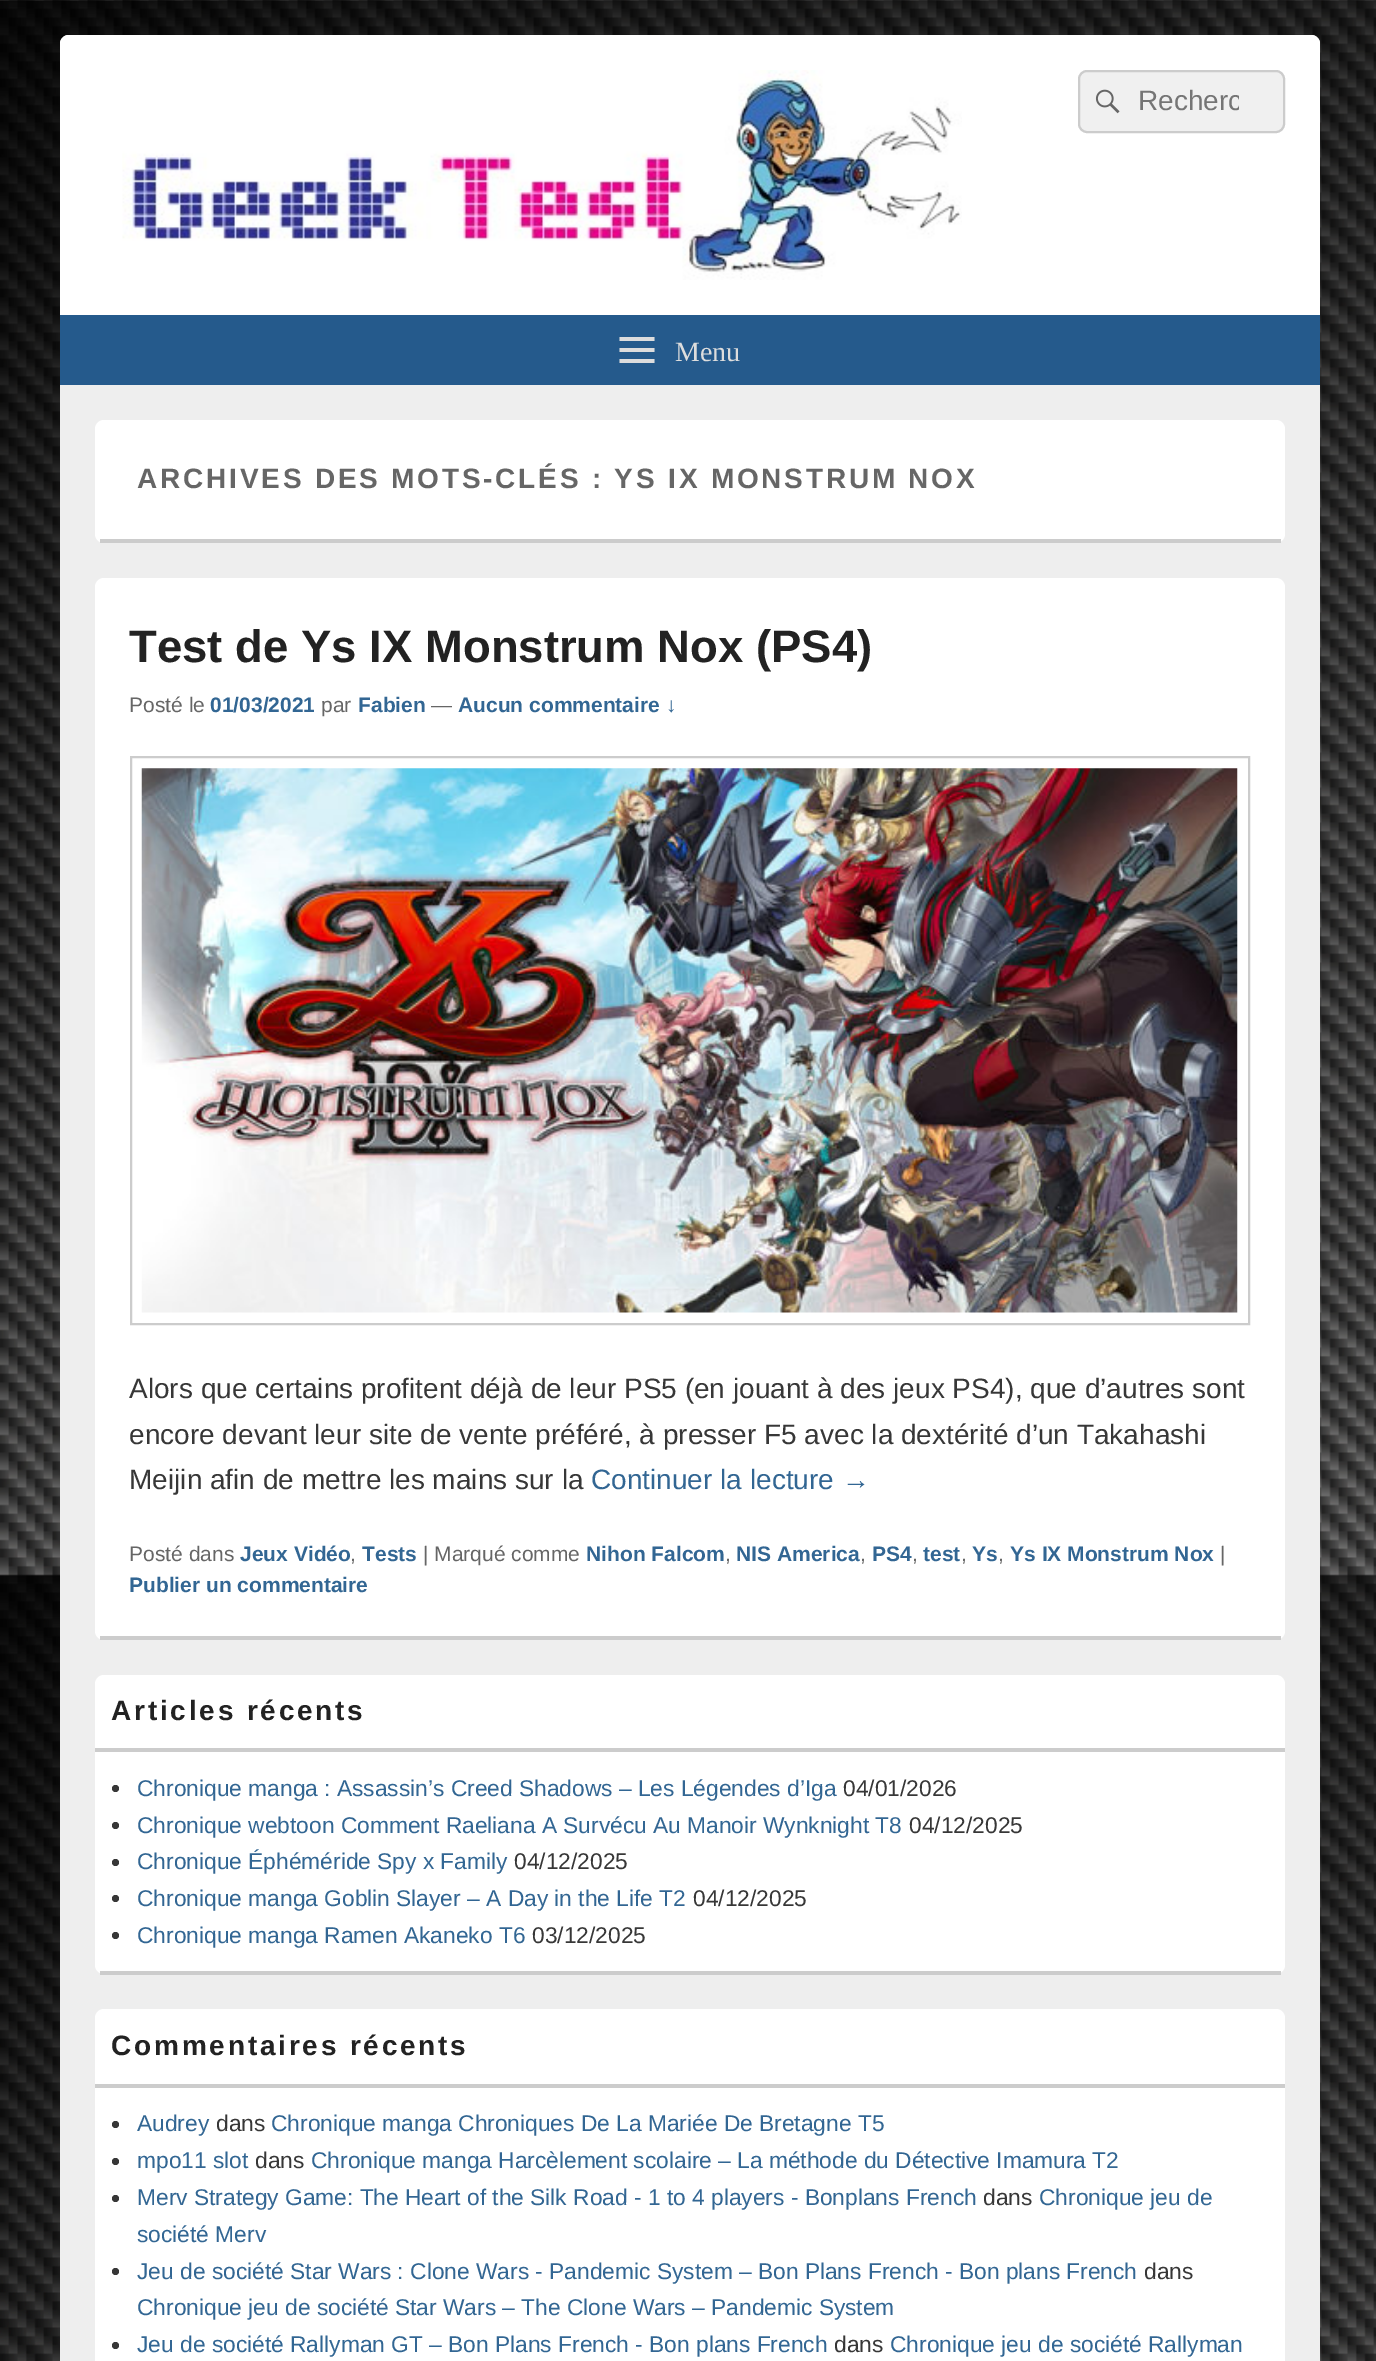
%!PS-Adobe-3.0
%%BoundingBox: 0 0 1376 2361
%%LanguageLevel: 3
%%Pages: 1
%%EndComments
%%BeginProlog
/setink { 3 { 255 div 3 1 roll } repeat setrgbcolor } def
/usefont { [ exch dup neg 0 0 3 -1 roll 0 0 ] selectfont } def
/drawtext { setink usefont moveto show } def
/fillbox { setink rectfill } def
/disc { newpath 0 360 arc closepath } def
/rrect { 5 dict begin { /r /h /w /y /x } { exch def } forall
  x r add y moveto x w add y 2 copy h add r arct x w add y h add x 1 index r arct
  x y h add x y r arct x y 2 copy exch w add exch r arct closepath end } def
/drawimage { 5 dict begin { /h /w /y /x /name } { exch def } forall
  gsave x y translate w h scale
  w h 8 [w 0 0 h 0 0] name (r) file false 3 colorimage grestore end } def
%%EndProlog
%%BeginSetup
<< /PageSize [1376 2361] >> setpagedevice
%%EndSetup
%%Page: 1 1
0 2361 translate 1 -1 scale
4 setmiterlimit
0 0 1376 2361 255 255 255 fillbox
(assets/img1.rgb) 0 0 1376 2361 drawimage
238 238 238 setink
60 35 1260 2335 9 rrect fill
255 255 255 setink
69 35 moveto 1311 35 lineto 1316 35 1320 39 1320 44 curveto 1320 385 lineto 60 385 lineto 60 44 lineto 60 39 64 35 69 35 curveto closepath fill
(assets/img2.rgb) 122 70 840 210 drawimage
240 240 240 setink
1079 71 205 61 8 rrect gsave fill grestore
204 204 204 setink
2 setlinewidth
stroke
(assets/img3.rgb) 1095 89 25 25 drawimage
gsave
1139 86 100 31 rectclip
(Recherc) 1138 110 /LiberationSans-Regular 28 117 117 117 drawtext
grestore
60 315 1260 70 37 90 140 fillbox
221 221 221 setink
619.5 363 moveto 619.5 359 lineto 654.5 359 lineto 654.5 363 lineto closepath 619.5 337 moveto 654.5 337 lineto 654.5 341 lineto 619.5 341 lineto closepath 619.5 352 moveto 619.5 348 lineto 654.5 348 lineto 654.5 352 lineto closepath fill
(Menu) 675 361 /LiberationSerif-Regular 28 221 221 221 drawtext
255 255 255 setink
95 420 1190 123 9 rrect fill
100 539 1181 4 204 204 204 fillbox
/LiberationSans-Bold 28 usefont
102 102 102 setink
137 488 moveto 2.8 0 (ARCHIVES DES MOTS-CLÉS : YS IX MONSTRUM NOX) ashow
255 255 255 setink
95 578 1190 1062 9 rrect fill
100 1636 1181 4 204 204 204 fillbox
(Test de Ys IX Monstrum Nox \(PS4\)) 129 662 /LiberationSans-Bold 45.5 34 34 34 drawtext
(Posté le) 129 712 /LiberationSans-Regular 21 102 102 102 drawtext
(01/03/2021) 210 712 /LiberationSans-Bold 21 50 102 147 drawtext
(par) 321 712 /LiberationSans-Regular 21 102 102 102 drawtext
(Fabien) 358 712 /LiberationSans-Bold 21 50 102 147 drawtext
(—) 431 712 /LiberationSans-Regular 21 102 102 102 drawtext
(Aucun commentaire ↓) 458 712 /LiberationSans-Bold 21 50 102 147 drawtext
204 204 204 setink
131 757 1118 567 rectstroke
(assets/img4.rgb) 141 768 1097 545 drawimage
(Alors que certains profitent déjà de leur PS5 \(en jouant à des jeux PS4\), que d’autres sont) 129 1398 /LiberationSans-Regular 28 55 55 55 drawtext
(encore devant leur site de vente préféré, à presser F5 avec la dextérité d’un Takahashi) 129 1444 /LiberationSans-Regular 28 55 55 55 drawtext
(Meijin afin de mettre les mains sur la) 129 1489 /LiberationSans-Regular 28 55 55 55 drawtext
(Continuer la lecture →) 591 1489 /LiberationSans-Regular 28 50 102 147 drawtext
(Posté dans) 129 1561 /LiberationSans-Regular 21 102 102 102 drawtext
(Jeux Vidéo) 240 1561 /LiberationSans-Bold 21 50 102 147 drawtext
(,) 350 1561 /LiberationSans-Regular 21 102 102 102 drawtext
(Tests) 362 1561 /LiberationSans-Bold 21 50 102 147 drawtext
(| Marqué comme) 423 1561 /LiberationSans-Regular 21 102 102 102 drawtext
(Nihon Falcom) 586 1561 /LiberationSans-Bold 21 50 102 147 drawtext
(,) 725 1561 /LiberationSans-Regular 21 102 102 102 drawtext
(NIS America) 736 1561 /LiberationSans-Bold 21 50 102 147 drawtext
(,) 860 1561 /LiberationSans-Regular 21 102 102 102 drawtext
(PS4) 872 1561 /LiberationSans-Bold 21 50 102 147 drawtext
(,) 912 1561 /LiberationSans-Regular 21 102 102 102 drawtext
(test) 923 1561 /LiberationSans-Bold 21 50 102 147 drawtext
(,) 961 1561 /LiberationSans-Regular 21 102 102 102 drawtext
(Ys) 972 1561 /LiberationSans-Bold 21 50 102 147 drawtext
(,) 998 1561 /LiberationSans-Regular 21 102 102 102 drawtext
(Ys IX Monstrum Nox) 1010 1561 /LiberationSans-Bold 21 50 102 147 drawtext
(|) 1220 1561 /LiberationSans-Regular 21 102 102 102 drawtext
(Publier un commentaire) 129 1592 /LiberationSans-Bold 21 50 102 147 drawtext
255 255 255 setink
95 1675 1190 299 9 rrect fill
100 1971 1181 4 204 204 204 fillbox
95 1748 1190 4 204 204 204 fillbox
/LiberationSans-Bold 28 usefont
34 34 34 setink
111 1720 moveto 2.8 0 (Articles récents) ashow
55 55 55 setink
115.5 1788.5 3.5 disc fill
(Chronique manga : Assassin’s Creed Shadows – Les Légendes d’Iga) 137 1796 /LiberationSans-Regular 22.75 50 102 147 drawtext
(04/01/2026) 843 1796 /LiberationSans-Regular 22.75 55 55 55 drawtext
115.5 1825.5 3.5 disc fill
(Chronique webtoon Comment Raeliana A Survécu Au Manoir Wynknight T8) 137 1833 /LiberationSans-Regular 22.75 50 102 147 drawtext
(04/12/2025) 909 1833 /LiberationSans-Regular 22.75 55 55 55 drawtext
115.5 1862.5 3.5 disc fill
(Chronique Éphéméride Spy x Family) 137 1869 /LiberationSans-Regular 22.75 50 102 147 drawtext
(04/12/2025) 514 1869 /LiberationSans-Regular 22.75 55 55 55 drawtext
115.5 1898.5 3.5 disc fill
(Chronique manga Goblin Slayer – A Day in the Life T2) 137 1906 /LiberationSans-Regular 22.75 50 102 147 drawtext
(04/12/2025) 693 1906 /LiberationSans-Regular 22.75 55 55 55 drawtext
115.5 1935.5 3.5 disc fill
(Chronique manga Ramen Akaneko T6) 137 1943 /LiberationSans-Regular 22.75 50 102 147 drawtext
(03/12/2025) 532 1943 /LiberationSans-Regular 22.75 55 55 55 drawtext
255 255 255 setink
95 2009 1190 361 9 rrect fill
95 2084 1190 4 204 204 204 fillbox
/LiberationSans-Bold 28 usefont
34 34 34 setink
111 2055 moveto 2.8 0 (Commentaires récents) ashow
55 55 55 setink
115.5 2124.5 3.5 disc fill
(Audrey) 137 2131 /LiberationSans-Regular 22.75 50 102 147 drawtext
(dans) 216 2131 /LiberationSans-Regular 22.75 55 55 55 drawtext
(Chronique manga Chroniques De La Mariée De Bretagne T5) 271 2131 /LiberationSans-Regular 22.75 50 102 147 drawtext
55 55 55 setink
115.5 2161.5 3.5 disc fill
(mpo11 slot) 137 2168 /LiberationSans-Regular 22.75 50 102 147 drawtext
(dans) 255 2168 /LiberationSans-Regular 22.75 55 55 55 drawtext
(Chronique manga Harcèlement scolaire – La méthode du Détective Imamura T2) 311 2168 /LiberationSans-Regular 22.75 50 102 147 drawtext
55 55 55 setink
115.5 2198.5 3.5 disc fill
(Merv Strategy Game: The Heart of the Silk Road - 1 to 4 players - Bonplans French) 137 2205 /LiberationSans-Regular 22.75 50 102 147 drawtext
(dans) 983 2205 /LiberationSans-Regular 22.75 55 55 55 drawtext
(Chronique jeu de) 1039 2205 /LiberationSans-Regular 22.75 50 102 147 drawtext
(société Merv) 137 2242 /LiberationSans-Regular 22.75 50 102 147 drawtext
55 55 55 setink
115.5 2271.5 3.5 disc fill
(Jeu de société Star Wars : Clone Wars - Pandemic System – Bon Plans French - Bon plans French) 137 2279 /LiberationSans-Regular 22.75 50 102 147 drawtext
(dans) 1144 2279 /LiberationSans-Regular 22.75 55 55 55 drawtext
(Chronique jeu de société Star Wars – The Clone Wars – Pandemic System) 137 2315 /LiberationSans-Regular 22.75 50 102 147 drawtext
55 55 55 setink
115.5 2345.5 3.5 disc fill
(Jeu de société Rallyman GT – Bon Plans French - Bon plans French) 137 2352 /LiberationSans-Regular 22.75 50 102 147 drawtext
(dans) 834 2352 /LiberationSans-Regular 22.75 55 55 55 drawtext
(Chronique jeu de société Rallyman) 890 2352 /LiberationSans-Regular 22.75 50 102 147 drawtext
showpage
%%EOF
